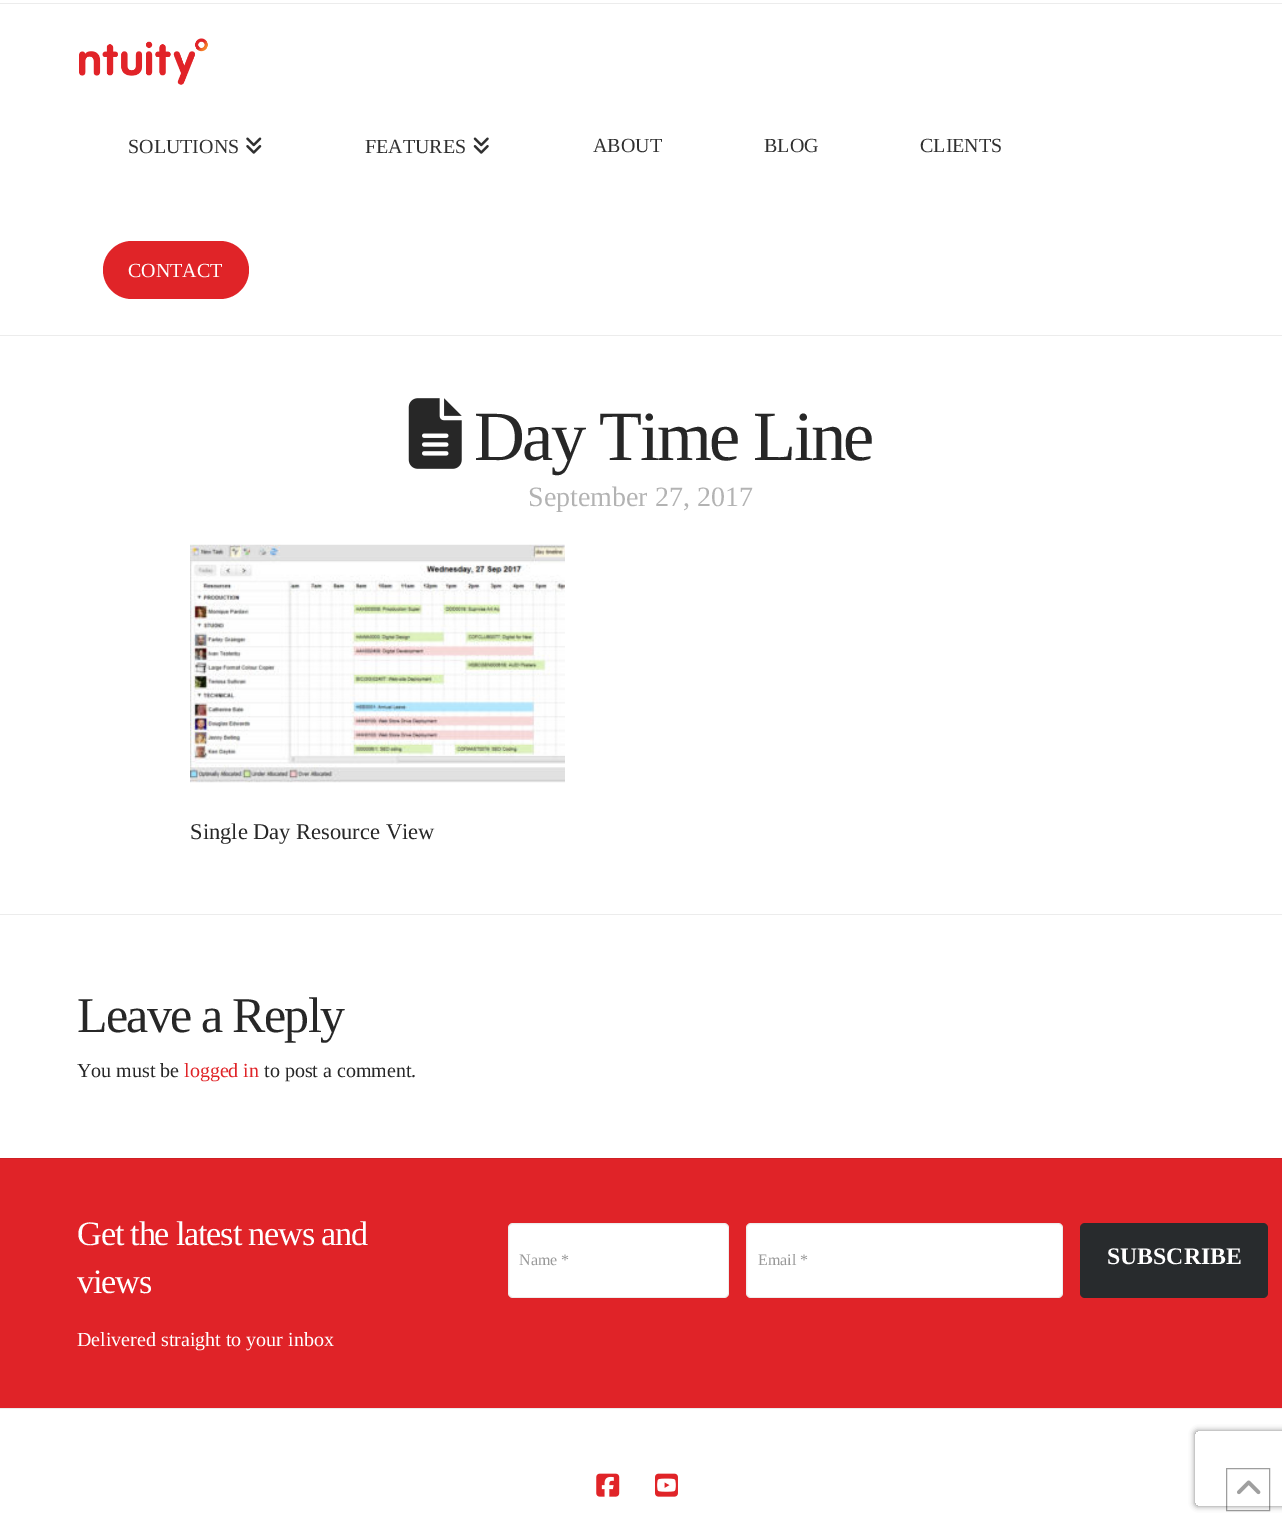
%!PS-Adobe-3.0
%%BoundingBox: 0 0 1282 1523
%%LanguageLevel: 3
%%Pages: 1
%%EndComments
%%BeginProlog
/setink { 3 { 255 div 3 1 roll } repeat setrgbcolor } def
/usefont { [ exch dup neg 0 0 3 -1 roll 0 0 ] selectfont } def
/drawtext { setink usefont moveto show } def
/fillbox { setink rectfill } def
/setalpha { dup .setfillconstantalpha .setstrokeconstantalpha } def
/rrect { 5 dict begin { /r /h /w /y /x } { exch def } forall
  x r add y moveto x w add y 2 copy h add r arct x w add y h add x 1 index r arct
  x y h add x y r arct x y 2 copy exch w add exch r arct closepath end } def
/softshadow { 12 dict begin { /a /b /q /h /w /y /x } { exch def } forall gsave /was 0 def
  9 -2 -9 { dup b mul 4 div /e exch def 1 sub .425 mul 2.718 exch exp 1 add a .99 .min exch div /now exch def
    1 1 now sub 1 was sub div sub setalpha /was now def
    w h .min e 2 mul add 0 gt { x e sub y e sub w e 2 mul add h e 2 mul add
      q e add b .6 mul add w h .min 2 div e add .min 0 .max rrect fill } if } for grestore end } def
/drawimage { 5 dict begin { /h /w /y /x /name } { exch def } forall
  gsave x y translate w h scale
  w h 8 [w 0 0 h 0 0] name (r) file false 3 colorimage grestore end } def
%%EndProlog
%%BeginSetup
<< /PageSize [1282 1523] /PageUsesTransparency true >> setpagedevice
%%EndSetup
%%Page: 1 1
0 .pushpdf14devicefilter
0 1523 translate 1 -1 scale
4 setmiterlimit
0 0 1282 1523 255 255 255 fillbox
0 3 1282 1 236 236 236 fillbox
0 335 1282 1 236 236 236 fillbox
(assets/img1.rgb) 79 38 129 47 drawimage
(SOLUTIONS) 128 153 /LiberationSerif-Regular 20 48 48 48 drawtext
(assets/img2.rgb) 246 137 16 17 drawimage
(FEATURES) 365 153 /LiberationSerif-Regular 20 48 48 48 drawtext
(assets/img3.rgb) 473 137 16 17 drawimage
(ABOUT) 593 152 /LiberationSerif-Regular 20 48 48 48 drawtext
(BLOG) 764 152 /LiberationSerif-Regular 20 48 48 48 drawtext
(CLIENTS) 920 152 /LiberationSerif-Regular 20 48 48 48 drawtext
224 36 40 setink
103 241 146 58 29 rrect fill
(CONTACT) 128 277 /LiberationSerif-Regular 20 255 255 255 drawtext
0 914 1282 1 236 236 236 fillbox
(assets/img4.rgb) 408 398 54 71 drawimage
/LiberationSerif-Regular 70.5 usefont
39 39 39 setink
474 460 moveto -2.5 0 (Day Time Line) ashow
(September 27, 2017) 528 506 /LiberationSerif-Regular 28 179 179 179 drawtext
(assets/img5.rgb) 190 544 375 239 drawimage
(Single Day Resource View) 190 839 /LiberationSerif-Regular 22.5 39 39 39 drawtext
/LiberationSerif-Regular 50 usefont
77 1032 moveto -1.75 0 (Leave a Reply) ashow
(You must be) 77 1077 /LiberationSerif-Regular 20 39 39 39 drawtext
(logged in) 184 1077 /LiberationSerif-Regular 20 224 36 40 drawtext
(to post a comment.) 264 1077 /LiberationSerif-Regular 20 39 39 39 drawtext
0 1159 1282 249 224 35 40 fillbox
0 1158 1282 1 207 32 37 fillbox
/LiberationSerif-Regular 34.25 usefont
255 255 255 setink
77 1245 moveto -1.2 0 (Get the latest news and) ashow
77 1293 moveto -1.2 0 (views) ashow
(Delivered straight to your inbox) 77 1346 /LiberationSerif-Regular 20 255 255 255 drawtext
508 1223 221 75 5 rrect fill
0.07 setalpha
0 0 0 setink
508.5 1223.5 220 74 4.5 rrect stroke
1 setalpha
(Name *) 519 1265 /LiberationSerif-Regular 16 153 153 153 drawtext
255 255 255 setink
746 1223 317 75 5 rrect fill
0.07 setalpha
0 0 0 setink
746.5 1223.5 316 74 4.5 rrect stroke
1 setalpha
(Email *) 758 1265 /LiberationSerif-Regular 16 153 153 153 drawtext
40 43 45 setink
1080 1223 188 75 5 rrect fill
(SUBSCRIBE) 1107 1264 /LiberationSerif-Bold 23.75 255 255 255 drawtext
0 1408 1282 1 236 236 236 fillbox
(assets/img6.rgb) 596 1473 24 24 drawimage
(assets/img7.rgb) 655 1473 23 24 drawimage
gsave
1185 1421 moveto 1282 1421 lineto 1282 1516 lineto 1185 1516 lineto closepath 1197.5 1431 moveto 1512.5 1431 lineto 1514 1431 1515 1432 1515 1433.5 curveto 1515 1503.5 lineto 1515 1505 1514 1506 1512.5 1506 curveto 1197.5 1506 lineto 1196 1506 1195 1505 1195 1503.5 curveto 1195 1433.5 lineto 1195 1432 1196 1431 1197.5 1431 curveto closepath eoclip newpath
128 128 128 setink
1195 1431 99 75 2.5 3 1 softshadow
grestore
0.38 setalpha
0 0 0 setink
1226.5 1468.5 43 42 rectstroke
1 setalpha
(assets/img8.rgb) 1237 1480 24 15 drawimage
.poppdf14devicefilter showpage
%%EOF
